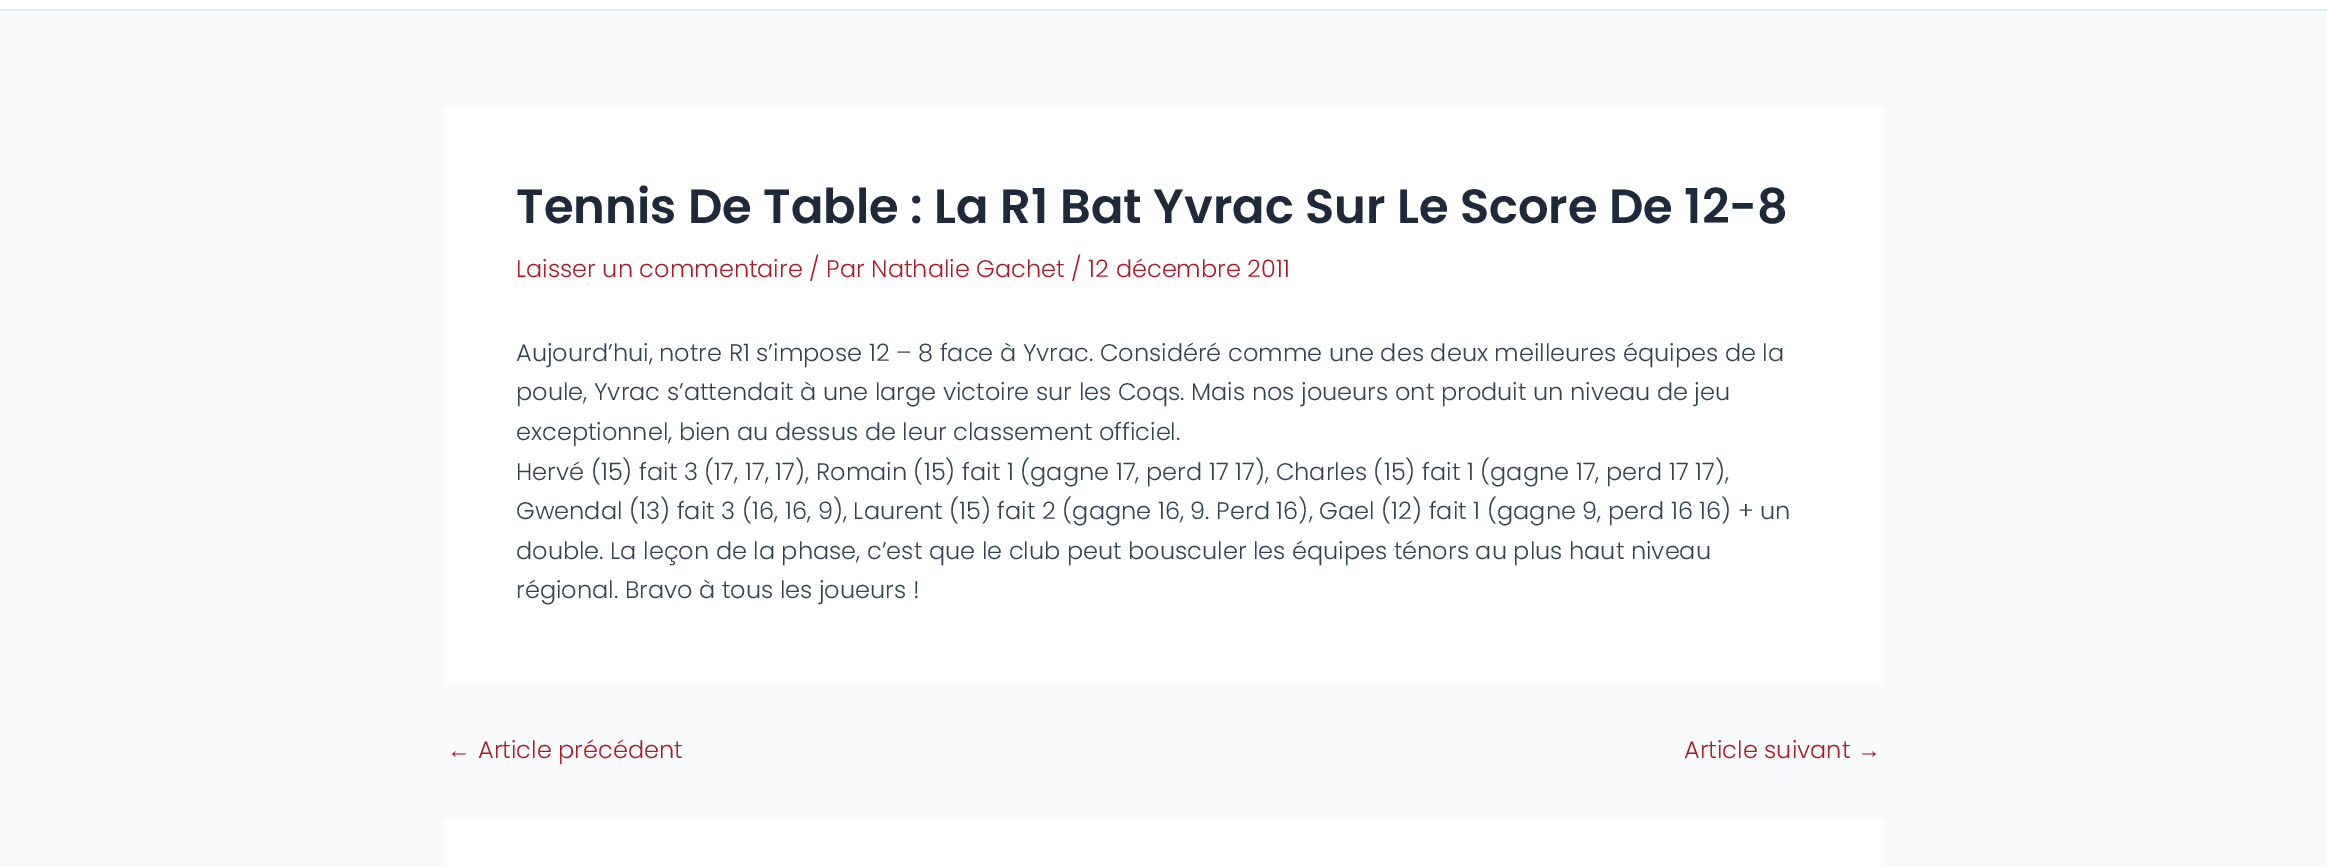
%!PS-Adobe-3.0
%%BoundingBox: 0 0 2327 867
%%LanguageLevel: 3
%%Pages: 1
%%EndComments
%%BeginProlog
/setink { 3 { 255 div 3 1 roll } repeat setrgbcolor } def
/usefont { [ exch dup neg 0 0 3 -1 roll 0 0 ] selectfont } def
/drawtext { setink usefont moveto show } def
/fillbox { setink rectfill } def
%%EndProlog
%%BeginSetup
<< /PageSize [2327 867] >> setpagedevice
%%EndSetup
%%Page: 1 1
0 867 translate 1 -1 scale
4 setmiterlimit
0 0 2327 867 249 250 251 fillbox
0 0 2327 9 255 255 255 fillbox
0 9 2327 2 226 232 240 fillbox
444 107 1440 576 255 255 255 fillbox
(Tennis De Table : La R1 Bat Yvrac Sur Le Score De 12-8) 516 223 /Poppins-SemiBold 48 30 41 59 drawtext
(Laisser un commentaire / Par Nathalie Gachet / 12 décembre 2011) 516 277 /Poppins-Light 24 169 27 40 drawtext
(Aujourd’hui, notre R1 s’impose 12 – 8 face à Yvrac. Considéré comme une des deux meilleures équipes de la) 516 361 /Poppins-Light 24 51 65 85 drawtext
(poule, Yvrac s’attendait à une large victoire sur les Coqs. Mais nos joueurs ont produit un niveau de jeu) 516 400 /Poppins-Light 24 51 65 85 drawtext
(exceptionnel, bien au dessus de leur classement officiel.) 516 440 /Poppins-Light 24 51 65 85 drawtext
(Hervé \(15\) fait 3 \(17, 17, 17\), Romain \(15\) fait 1 \(gagne 17, perd 17 17\), Charles \(15\) fait 1 \(gagne 17, perd 17 17\),) 516 480 /Poppins-Light 24 51 65 85 drawtext
(Gwendal \(13\) fait 3 \(16, 16, 9\), Laurent \(15\) fait 2 \(gagne 16, 9. Perd 16\), Gael \(12\) fait 1 \(gagne 9, perd 16 16\) + un) 516 519 /Poppins-Light 24 51 65 85 drawtext
(double. La leçon de la phase, c’est que le club peut bousculer les équipes ténors au plus haut niveau) 516 559 /Poppins-Light 24 51 65 85 drawtext
(régional. Bravo à tous les joueurs !) 516 598 /Poppins-Light 24 51 65 85 drawtext
(←) 447 758 /LiberationSans-Regular 24 169 27 40 drawtext
(Article précédent) 478 758 /Poppins-Light 24 169 27 40 drawtext
(Article suivant) 1684 758 /Poppins-Light 24 169 27 40 drawtext
(→) 1857 758 /LiberationSans-Regular 24 169 27 40 drawtext
444 819 1440 48 255 255 255 fillbox
showpage
%%EOF
